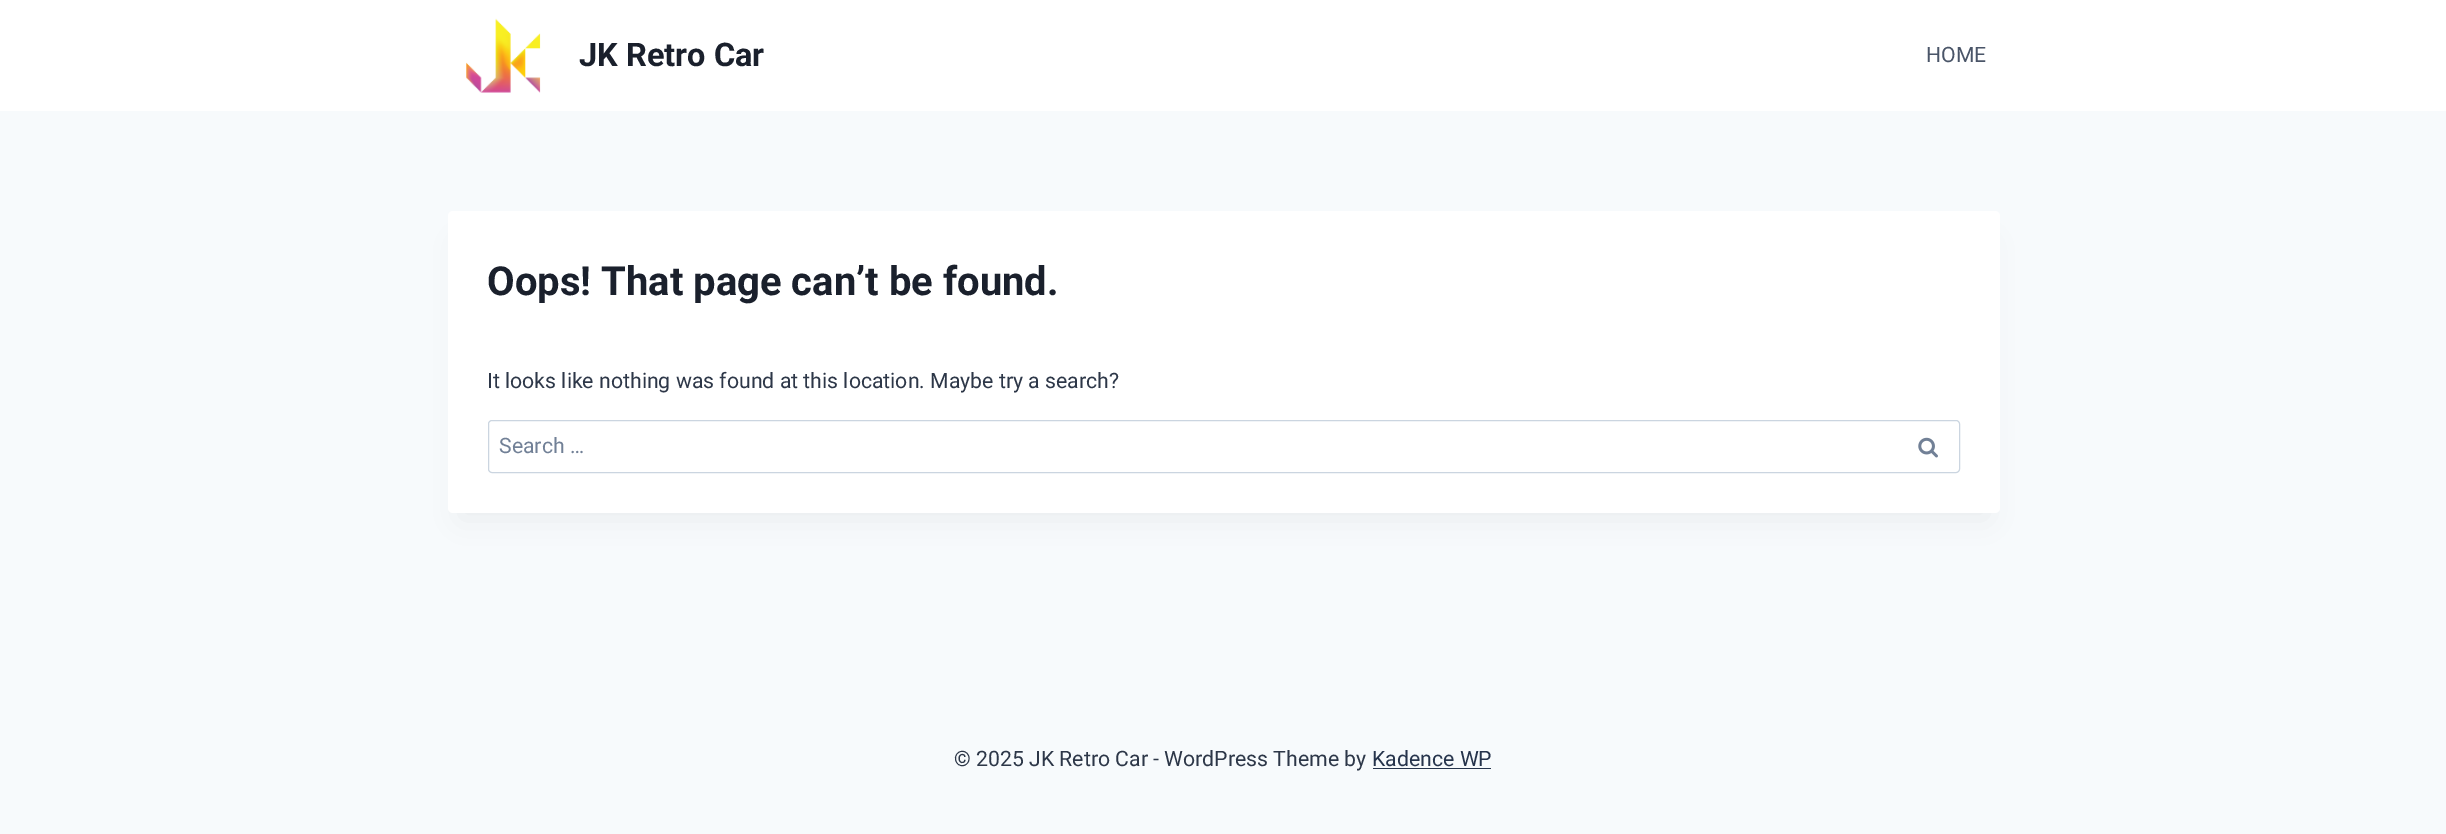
%!PS-Adobe-3.0
%%BoundingBox: 0 0 2446 834
%%LanguageLevel: 3
%%Pages: 1
%%EndComments
%%BeginProlog
/setink { 3 { 255 div 3 1 roll } repeat setrgbcolor } def
/usefont { [ exch dup neg 0 0 3 -1 roll 0 0 ] selectfont } def
/drawtext { setink usefont moveto show } def
/fillbox { setink rectfill } def
/setalpha { dup .setfillconstantalpha .setstrokeconstantalpha } def
/rrect { 5 dict begin { /r /h /w /y /x } { exch def } forall
  x r add y moveto x w add y 2 copy h add r arct x w add y h add x 1 index r arct
  x y h add x y r arct x y 2 copy exch w add exch r arct closepath end } def
/softshadow { 12 dict begin { /a /b /q /h /w /y /x } { exch def } forall gsave /was 0 def
  9 -2 -9 { dup b mul 4 div /e exch def 1 sub .425 mul 2.718 exch exp 1 add a .99 .min exch div /now exch def
    1 1 now sub 1 was sub div sub setalpha /was now def
    w h .min e 2 mul add 0 gt { x e sub y e sub w e 2 mul add h e 2 mul add
      q e add b .6 mul add w h .min 2 div e add .min 0 .max rrect fill } if } for grestore end } def
/drawimage { 5 dict begin { /h /w /y /x /name } { exch def } forall
  gsave x y translate w h scale
  w h 8 [w 0 0 h 0 0] name (r) file false 3 colorimage grestore end } def
%%EndProlog
%%BeginSetup
<< /PageSize [2446 834] /PageUsesTransparency true >> setpagedevice
%%EndSetup
%%Page: 1 1
0 .pushpdf14devicefilter
0 834 translate 1 -1 scale
4 setmiterlimit
0 0 2446 834 247 250 252 fillbox
0 0 2446 111 255 255 255 fillbox
(assets/img1.rgb) 466 18 75 75 drawimage
(JK Retro Car) 579 66 /Roboto-Bold 32.5 26 32 44 drawtext
(HOME) 1926 62 /Roboto-Regular 21.25 74 85 104 drawtext
0 0 0 setink
460 243 1528 276 0 15.5 0.05 softshadow
255 255 255 setink
448 211 1552 302 5 rrect fill
(Oops! That page can’t be found.) 487 295 /Roboto-Bold 40 26 32 44 drawtext
(It looks like nothing was found at this location. Maybe try a search?) 487 388 /Roboto-Regular 21.25 45 55 72 drawtext
203 213 224 setink
488.5 420.5 1471 52 3.5 rrect stroke
(Search …) 499 453 /Roboto-Regular 21.25 113 128 150 drawtext
(assets/img2.rgb) 1918 437 20 21 drawimage
(© 2025 JK Retro Car - WordPress Theme by) 954 766 /Roboto-Regular 21.25 45 55 72 drawtext
(Kadence WP) 1372 766 /Roboto-Regular 21.25 38 52 76 drawtext
1373 768 118 1 38 52 76 fillbox
.poppdf14devicefilter showpage
%%EOF
